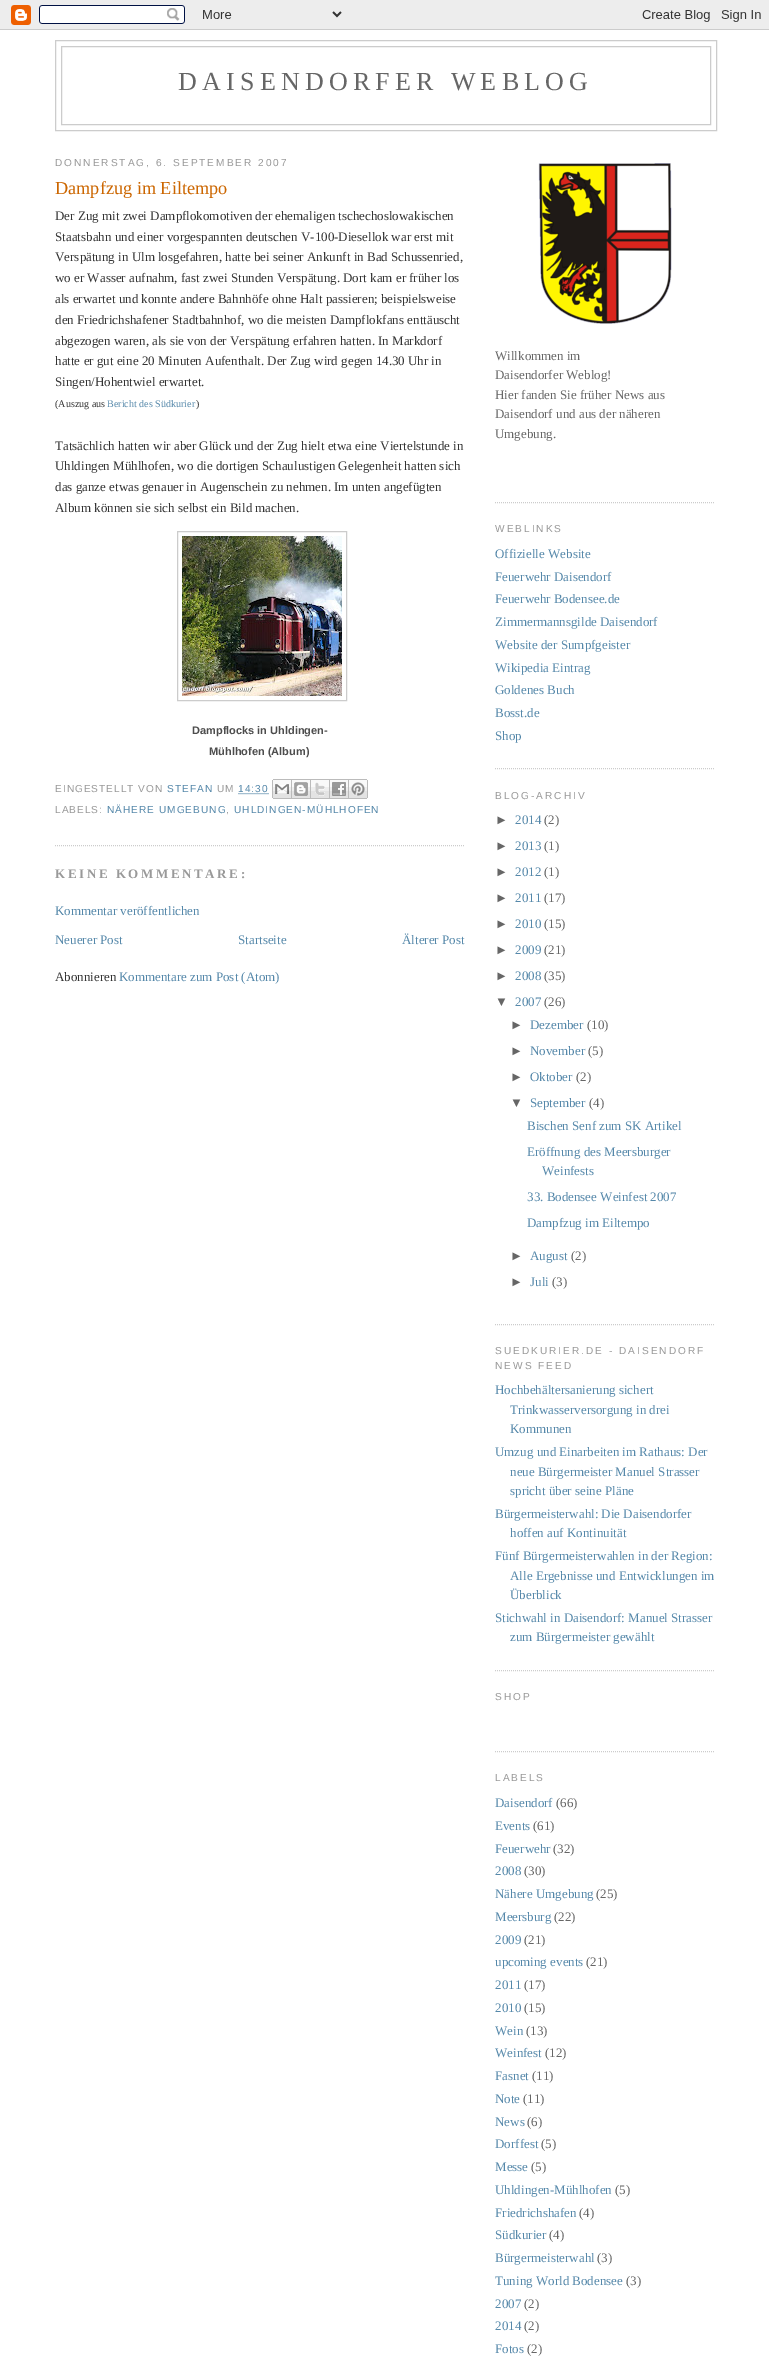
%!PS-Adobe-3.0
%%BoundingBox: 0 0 769 2369
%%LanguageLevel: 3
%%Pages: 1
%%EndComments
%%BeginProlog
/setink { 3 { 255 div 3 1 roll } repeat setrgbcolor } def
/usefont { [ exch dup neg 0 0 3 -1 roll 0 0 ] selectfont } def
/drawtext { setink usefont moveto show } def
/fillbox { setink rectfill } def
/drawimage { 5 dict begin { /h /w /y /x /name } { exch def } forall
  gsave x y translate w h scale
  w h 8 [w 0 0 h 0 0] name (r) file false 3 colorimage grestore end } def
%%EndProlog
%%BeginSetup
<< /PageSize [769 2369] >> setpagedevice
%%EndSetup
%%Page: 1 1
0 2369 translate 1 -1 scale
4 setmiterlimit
0 0 769 2369 255 255 255 fillbox
(assets/img1.rgb) 0 0 769 30 drawimage
204 204 204 setink
55.5 40.5 661 90 rectstroke
61.5 46.5 649 78 rectstroke
/LiberationSerif-Regular 26 usefont
102 102 102 setink
178 90 moveto 5.25 0 (DAISENDORFER WEBLOG) ashow
/LiberationSans-Regular 10.1 usefont
153 153 153 setink
55 166 moveto 2 0 (DONNERSTAG, 6. SEPTEMBER 2007) ashow
204 204 204 setink
[1 1] 0 setdash
55 845.5 moveto 465 845.5 lineto stroke
(Dampfzug im Eiltempo) 55 194 /LiberationSerif-Regular 18.25 204 102 0 drawtext
(Der Zug mit zwei Dampflokomotiven der ehemaligen tschechoslowakischen) 55 220 /LiberationSerif-Regular 13 51 51 51 drawtext
(Staatsbahn und einer vorgespannten deutschen V-100-Diesellok war erst mit) 55 241 /LiberationSerif-Regular 13 51 51 51 drawtext
(Verspätung in Ulm losgefahren, hatte bei seiner Ankunft in Bad Schussenried,) 55 261 /LiberationSerif-Regular 13 51 51 51 drawtext
(wo er Wasser aufnahm, fast zwei Stunden Verspätung. Dort kam er früher los) 55 282 /LiberationSerif-Regular 13 51 51 51 drawtext
(als erwartet und konnte andere Bahnhöfe ohne Halt passieren; beispielsweise) 55 303 /LiberationSerif-Regular 13 51 51 51 drawtext
(den Friedrichshafener Stadtbahnhof, wo die meisten Dampflokfans enttäuscht) 55 324 /LiberationSerif-Regular 13 51 51 51 drawtext
(abgezogen waren, als sie von der Verspätung erfahren hatten. In Markdorf) 55 345 /LiberationSerif-Regular 13 51 51 51 drawtext
(hatte er gut eine 20 Minuten Aufenthalt. Der Zug wird gegen 14.30 Uhr in) 55 365 /LiberationSerif-Regular 13 51 51 51 drawtext
(Singen/Hohentwiel erwartet.) 55 386 /LiberationSerif-Regular 13 51 51 51 drawtext
(\(Auszug aus) 55 407 /LiberationSerif-Regular 10.1 51 51 51 drawtext
(Bericht des Südkurier) 107 407 /LiberationSerif-Regular 10.1 85 136 170 drawtext
(\)) 196 407 /LiberationSerif-Regular 10.1 51 51 51 drawtext
gsave
55 141 410 891 rectclip
(Tatsächlich hatten wir aber Glück und der Zug hielt etwa eine Viertelstunde in) 55 450 /LiberationSerif-Regular 13 51 51 51 drawtext
grestore
(Uhldingen Mühlhofen, wo die dortigen Schaulustigen Gelegenheit hatten sich) 55 470 /LiberationSerif-Regular 13 51 51 51 drawtext
(das ganze etwas genauer in Augenschein zu nehmen. Im unten angefügten) 55 491 /LiberationSerif-Regular 13 51 51 51 drawtext
(Album können sie sich selbst ein Bild machen.) 55 512 /LiberationSerif-Regular 13 51 51 51 drawtext
204 204 204 setink
[] 0 setdash
177.5 531.5 169 169 rectstroke
(assets/img2.rgb) 182 536 160 160 drawimage
(Dampflocks in Uhldingen-) 192 734 /LiberationSans-Bold 11 77 77 77 drawtext
(Mühlhofen \(Album\)) 209 755 /LiberationSans-Bold 11 77 77 77 drawtext
/LiberationSans-Regular 10.1 usefont
153 153 153 setink
55 792 moveto 1 0 (EINGESTELLT VON) ashow
85 136 170 setink
167 792 moveto 1 0 (STEFAN) ashow
153 153 153 setink
217 792 moveto 1 0 (UM) ashow
85 136 170 setink
238 792 moveto 1 0 (14:30) ashow
[1 1] 0 setdash
238.5 793.5 moveto 269 793.5 lineto stroke
(assets/img3.rgb) 272 779 20 20 drawimage
(assets/img4.rgb) 292 779 19 20 drawimage
(assets/img5.rgb) 311 779 19 20 drawimage
(assets/img6.rgb) 330 779 19 20 drawimage
(assets/img7.rgb) 349 779 19 20 drawimage
153 153 153 setink
55 813 moveto 1 0 (LABELS:) ashow
85 136 170 setink
107 813 moveto 1 0 (NÄHERE UMGEBUNG) ashow
153 153 153 setink
226 813 moveto 1 0 (,) ashow
85 136 170 setink
234 813 moveto 1 0 (UHLDINGEN-MÜHLHOFEN) ashow
/LiberationSerif-Bold 13 usefont
153 153 153 setink
55 878 moveto 2.6 0 (KEINE KOMMENTARE:) ashow
(Kommentar veröffentlichen) 55 915 /LiberationSerif-Regular 13 85 136 170 drawtext
(Neuerer Post) 55 944 /LiberationSerif-Regular 13 85 136 170 drawtext
(Startseite) 238 944 /LiberationSerif-Regular 13 85 136 170 drawtext
(Älterer Post) 402 944 /LiberationSerif-Regular 13 85 136 170 drawtext
(Abonnieren) 55 981 /LiberationSerif-Regular 13 51 51 51 drawtext
(Kommentare zum Post \(Atom\)) 119 981 /LiberationSerif-Regular 13 85 136 170 drawtext
204 204 204 setink
495 502.5 moveto 715 502.5 lineto stroke
(assets/img8.rgb) 538 163 134 161 drawimage
(Willkommen im) 495 360 /LiberationSerif-Regular 13 102 102 102 drawtext
(Daisendorfer Weblog!) 495 379 /LiberationSerif-Regular 13 102 102 102 drawtext
(Hier fanden Sie früher News aus) 495 399 /LiberationSerif-Regular 13 102 102 102 drawtext
(Daisendorf und aus der näheren) 495 418 /LiberationSerif-Regular 13 102 102 102 drawtext
(Umgebung.) 495 438 /LiberationSerif-Regular 13 102 102 102 drawtext
204 204 204 setink
495 768.5 moveto 715 768.5 lineto stroke
/LiberationSans-Regular 10.1 usefont
153 153 153 setink
495 532 moveto 2 0 (WEBLINKS) ashow
(Offizielle Website) 495 558 /LiberationSerif-Regular 13 85 136 170 drawtext
(Feuerwehr Daisendorf) 495 581 /LiberationSerif-Regular 13 85 136 170 drawtext
(Feuerwehr Bodensee.de) 495 603 /LiberationSerif-Regular 13 85 136 170 drawtext
(Zimmermannsgilde Daisendorf) 495 626 /LiberationSerif-Regular 13 85 136 170 drawtext
(Website der Sumpfgeister) 495 649 /LiberationSerif-Regular 13 85 136 170 drawtext
(Wikipedia Eintrag) 495 672 /LiberationSerif-Regular 13 85 136 170 drawtext
(Goldenes Buch) 495 694 /LiberationSerif-Regular 13 85 136 170 drawtext
(Bosst.de) 495 717 /LiberationSerif-Regular 13 85 136 170 drawtext
(Shop) 495 740 /LiberationSerif-Regular 13 85 136 170 drawtext
204 204 204 setink
495 1324.5 moveto 715 1324.5 lineto stroke
/LiberationSans-Regular 10.1 usefont
153 153 153 setink
495 799 moveto 2 0 (BLOG-ARCHIV) ashow
(►) 495 824 /LiberationSans-Regular 13 102 102 102 drawtext
(2014) 515 824 /LiberationSerif-Regular 13 85 136 170 drawtext
(\(2\)) 544 824 /LiberationSerif-Regular 13 102 102 102 drawtext
(►) 495 850 /LiberationSans-Regular 13 102 102 102 drawtext
(2013) 515 850 /LiberationSerif-Regular 13 85 136 170 drawtext
(\(1\)) 544 850 /LiberationSerif-Regular 13 102 102 102 drawtext
(►) 495 876 /LiberationSans-Regular 13 102 102 102 drawtext
(2012) 515 876 /LiberationSerif-Regular 13 85 136 170 drawtext
(\(1\)) 544 876 /LiberationSerif-Regular 13 102 102 102 drawtext
(►) 495 902 /LiberationSans-Regular 13 102 102 102 drawtext
(2011) 515 902 /LiberationSerif-Regular 13 85 136 170 drawtext
(\(17\)) 544 902 /LiberationSerif-Regular 13 102 102 102 drawtext
(►) 495 928 /LiberationSans-Regular 13 102 102 102 drawtext
(2010) 515 928 /LiberationSerif-Regular 13 85 136 170 drawtext
(\(15\)) 544 928 /LiberationSerif-Regular 13 102 102 102 drawtext
(►) 495 954 /LiberationSans-Regular 13 102 102 102 drawtext
(2009) 515 954 /LiberationSerif-Regular 13 85 136 170 drawtext
(\(21\)) 544 954 /LiberationSerif-Regular 13 102 102 102 drawtext
(►) 495 980 /LiberationSans-Regular 13 102 102 102 drawtext
(2008) 515 980 /LiberationSerif-Regular 13 85 136 170 drawtext
(\(35\)) 544 980 /LiberationSerif-Regular 13 102 102 102 drawtext
(▼) 495 1006 /LiberationSans-Regular 13 102 102 102 drawtext
(2007) 515 1006 /LiberationSerif-Regular 13 85 136 170 drawtext
(\(26\)) 544 1006 /LiberationSerif-Regular 13 102 102 102 drawtext
(►) 510 1029 /LiberationSans-Regular 13 102 102 102 drawtext
(Dezember) 530 1029 /LiberationSerif-Regular 13 85 136 170 drawtext
(\(10\)) 587 1029 /LiberationSerif-Regular 13 102 102 102 drawtext
(►) 510 1055 /LiberationSans-Regular 13 102 102 102 drawtext
(November) 530 1055 /LiberationSerif-Regular 13 85 136 170 drawtext
(\(5\)) 588 1055 /LiberationSerif-Regular 13 102 102 102 drawtext
(►) 510 1081 /LiberationSans-Regular 13 102 102 102 drawtext
(Oktober) 530 1081 /LiberationSerif-Regular 13 85 136 170 drawtext
(\(2\)) 576 1081 /LiberationSerif-Regular 13 102 102 102 drawtext
(▼) 510 1107 /LiberationSans-Regular 13 102 102 102 drawtext
(September) 530 1107 /LiberationSerif-Regular 13 85 136 170 drawtext
(\(4\)) 589 1107 /LiberationSerif-Regular 13 102 102 102 drawtext
(Bischen Senf zum SK Artikel) 527 1130 /LiberationSerif-Regular 13 85 136 170 drawtext
(Eröffnung des Meersburger) 527 1156 /LiberationSerif-Regular 13 85 136 170 drawtext
(Weinfests) 542 1175 /LiberationSerif-Regular 13 85 136 170 drawtext
(33. Bodensee Weinfest 2007) 527 1201 /LiberationSerif-Regular 13 85 136 170 drawtext
(Dampfzug im Eiltempo) 527 1227 /LiberationSerif-Regular 13 85 136 170 drawtext
(►) 510 1260 /LiberationSans-Regular 13 102 102 102 drawtext
(August) 530 1260 /LiberationSerif-Regular 13 85 136 170 drawtext
(\(2\)) 571 1260 /LiberationSerif-Regular 13 102 102 102 drawtext
(►) 510 1286 /LiberationSans-Regular 13 102 102 102 drawtext
(Juli) 530 1286 /LiberationSerif-Regular 13 85 136 170 drawtext
(\(3\)) 552 1286 /LiberationSerif-Regular 13 102 102 102 drawtext
204 204 204 setink
495 1670.5 moveto 715 1670.5 lineto stroke
/LiberationSans-Regular 10.1 usefont
153 153 153 setink
495 1354 moveto 2 0 (SUEDKURIER.DE - DAISENDORF) ashow
495 1369 moveto 2 0 (NEWS FEED) ashow
(Hochbehältersanierung sichert) 495 1394 /LiberationSerif-Regular 13 85 136 170 drawtext
(Trinkwasserversorgung in drei) 510 1414 /LiberationSerif-Regular 13 85 136 170 drawtext
(Kommunen) 510 1433 /LiberationSerif-Regular 13 85 136 170 drawtext
(Umzug und Einarbeiten im Rathaus: Der) 495 1456 /LiberationSerif-Regular 13 85 136 170 drawtext
(neue Bürgermeister Manuel Strasser) 510 1476 /LiberationSerif-Regular 13 85 136 170 drawtext
(spricht über seine Pläne) 510 1495 /LiberationSerif-Regular 13 85 136 170 drawtext
(Bürgermeisterwahl: Die Daisendorfer) 495 1518 /LiberationSerif-Regular 13 85 136 170 drawtext
(hoffen auf Kontinuität) 510 1537 /LiberationSerif-Regular 13 85 136 170 drawtext
(Fünf Bürgermeisterwahlen in der Region:) 495 1560 /LiberationSerif-Regular 13 85 136 170 drawtext
(Alle Ergebnisse und Entwicklungen im) 510 1580 /LiberationSerif-Regular 13 85 136 170 drawtext
(Überblick) 510 1599 /LiberationSerif-Regular 13 85 136 170 drawtext
(Stichwahl in Daisendorf: Manuel Strasser) 495 1622 /LiberationSerif-Regular 13 85 136 170 drawtext
(zum Bürgermeister gewählt) 510 1641 /LiberationSerif-Regular 13 85 136 170 drawtext
204 204 204 setink
495 1751.5 moveto 715 1751.5 lineto stroke
/LiberationSans-Regular 10.1 usefont
153 153 153 setink
495 1700 moveto 2 0 (SHOP) ashow
495 1781 moveto 2 0 (LABELS) ashow
(Daisendorf) 495 1807 /LiberationSerif-Regular 13 85 136 170 drawtext
(\(66\)) 556 1807 /LiberationSerif-Regular 13 102 102 102 drawtext
(Events) 495 1830 /LiberationSerif-Regular 13 85 136 170 drawtext
(\(61\)) 533 1830 /LiberationSerif-Regular 13 102 102 102 drawtext
(Feuerwehr) 495 1853 /LiberationSerif-Regular 13 85 136 170 drawtext
(\(32\)) 553 1853 /LiberationSerif-Regular 13 102 102 102 drawtext
(2008) 495 1875 /LiberationSerif-Regular 13 85 136 170 drawtext
(\(30\)) 524 1875 /LiberationSerif-Regular 13 102 102 102 drawtext
(Nähere Umgebung) 495 1898 /LiberationSerif-Regular 13 85 136 170 drawtext
(\(25\)) 596 1898 /LiberationSerif-Regular 13 102 102 102 drawtext
(Meersburg) 495 1921 /LiberationSerif-Regular 13 85 136 170 drawtext
(\(22\)) 554 1921 /LiberationSerif-Regular 13 102 102 102 drawtext
(2009) 495 1944 /LiberationSerif-Regular 13 85 136 170 drawtext
(\(21\)) 524 1944 /LiberationSerif-Regular 13 102 102 102 drawtext
(upcoming events) 495 1966 /LiberationSerif-Regular 13 85 136 170 drawtext
(\(21\)) 586 1966 /LiberationSerif-Regular 13 102 102 102 drawtext
(2011) 495 1989 /LiberationSerif-Regular 13 85 136 170 drawtext
(\(17\)) 524 1989 /LiberationSerif-Regular 13 102 102 102 drawtext
(2010) 495 2012 /LiberationSerif-Regular 13 85 136 170 drawtext
(\(15\)) 524 2012 /LiberationSerif-Regular 13 102 102 102 drawtext
(Wein) 495 2035 /LiberationSerif-Regular 13 85 136 170 drawtext
(\(13\)) 526 2035 /LiberationSerif-Regular 13 102 102 102 drawtext
(Weinfest) 495 2057 /LiberationSerif-Regular 13 85 136 170 drawtext
(\(12\)) 545 2057 /LiberationSerif-Regular 13 102 102 102 drawtext
(Fasnet) 495 2080 /LiberationSerif-Regular 13 85 136 170 drawtext
(\(11\)) 532 2080 /LiberationSerif-Regular 13 102 102 102 drawtext
(Note) 495 2103 /LiberationSerif-Regular 13 85 136 170 drawtext
(\(11\)) 523 2103 /LiberationSerif-Regular 13 102 102 102 drawtext
(News) 495 2126 /LiberationSerif-Regular 13 85 136 170 drawtext
(\(6\)) 527 2126 /LiberationSerif-Regular 13 102 102 102 drawtext
(Dorffest) 495 2148 /LiberationSerif-Regular 13 85 136 170 drawtext
(\(5\)) 541 2148 /LiberationSerif-Regular 13 102 102 102 drawtext
(Messe) 495 2171 /LiberationSerif-Regular 13 85 136 170 drawtext
(\(5\)) 531 2171 /LiberationSerif-Regular 13 102 102 102 drawtext
(Uhldingen-Mühlhofen) 495 2194 /LiberationSerif-Regular 13 85 136 170 drawtext
(\(5\)) 615 2194 /LiberationSerif-Regular 13 102 102 102 drawtext
(Friedrichshafen) 495 2217 /LiberationSerif-Regular 13 85 136 170 drawtext
(\(4\)) 579 2217 /LiberationSerif-Regular 13 102 102 102 drawtext
(Südkurier) 495 2239 /LiberationSerif-Regular 13 85 136 170 drawtext
(\(4\)) 549 2239 /LiberationSerif-Regular 13 102 102 102 drawtext
(Bürgermeisterwahl) 495 2262 /LiberationSerif-Regular 13 85 136 170 drawtext
(\(3\)) 597 2262 /LiberationSerif-Regular 13 102 102 102 drawtext
gsave
495 141 220 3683 rectclip
(Tuning World Bodensee) 495 2285 /LiberationSerif-Regular 13 85 136 170 drawtext
grestore
(\(3\)) 626 2285 /LiberationSerif-Regular 13 102 102 102 drawtext
(2007) 495 2308 /LiberationSerif-Regular 13 85 136 170 drawtext
(\(2\)) 524 2308 /LiberationSerif-Regular 13 102 102 102 drawtext
(2014) 495 2330 /LiberationSerif-Regular 13 85 136 170 drawtext
(\(2\)) 524 2330 /LiberationSerif-Regular 13 102 102 102 drawtext
(Fotos) 495 2353 /LiberationSerif-Regular 13 85 136 170 drawtext
(\(2\)) 527 2353 /LiberationSerif-Regular 13 102 102 102 drawtext
showpage
%%EOF
